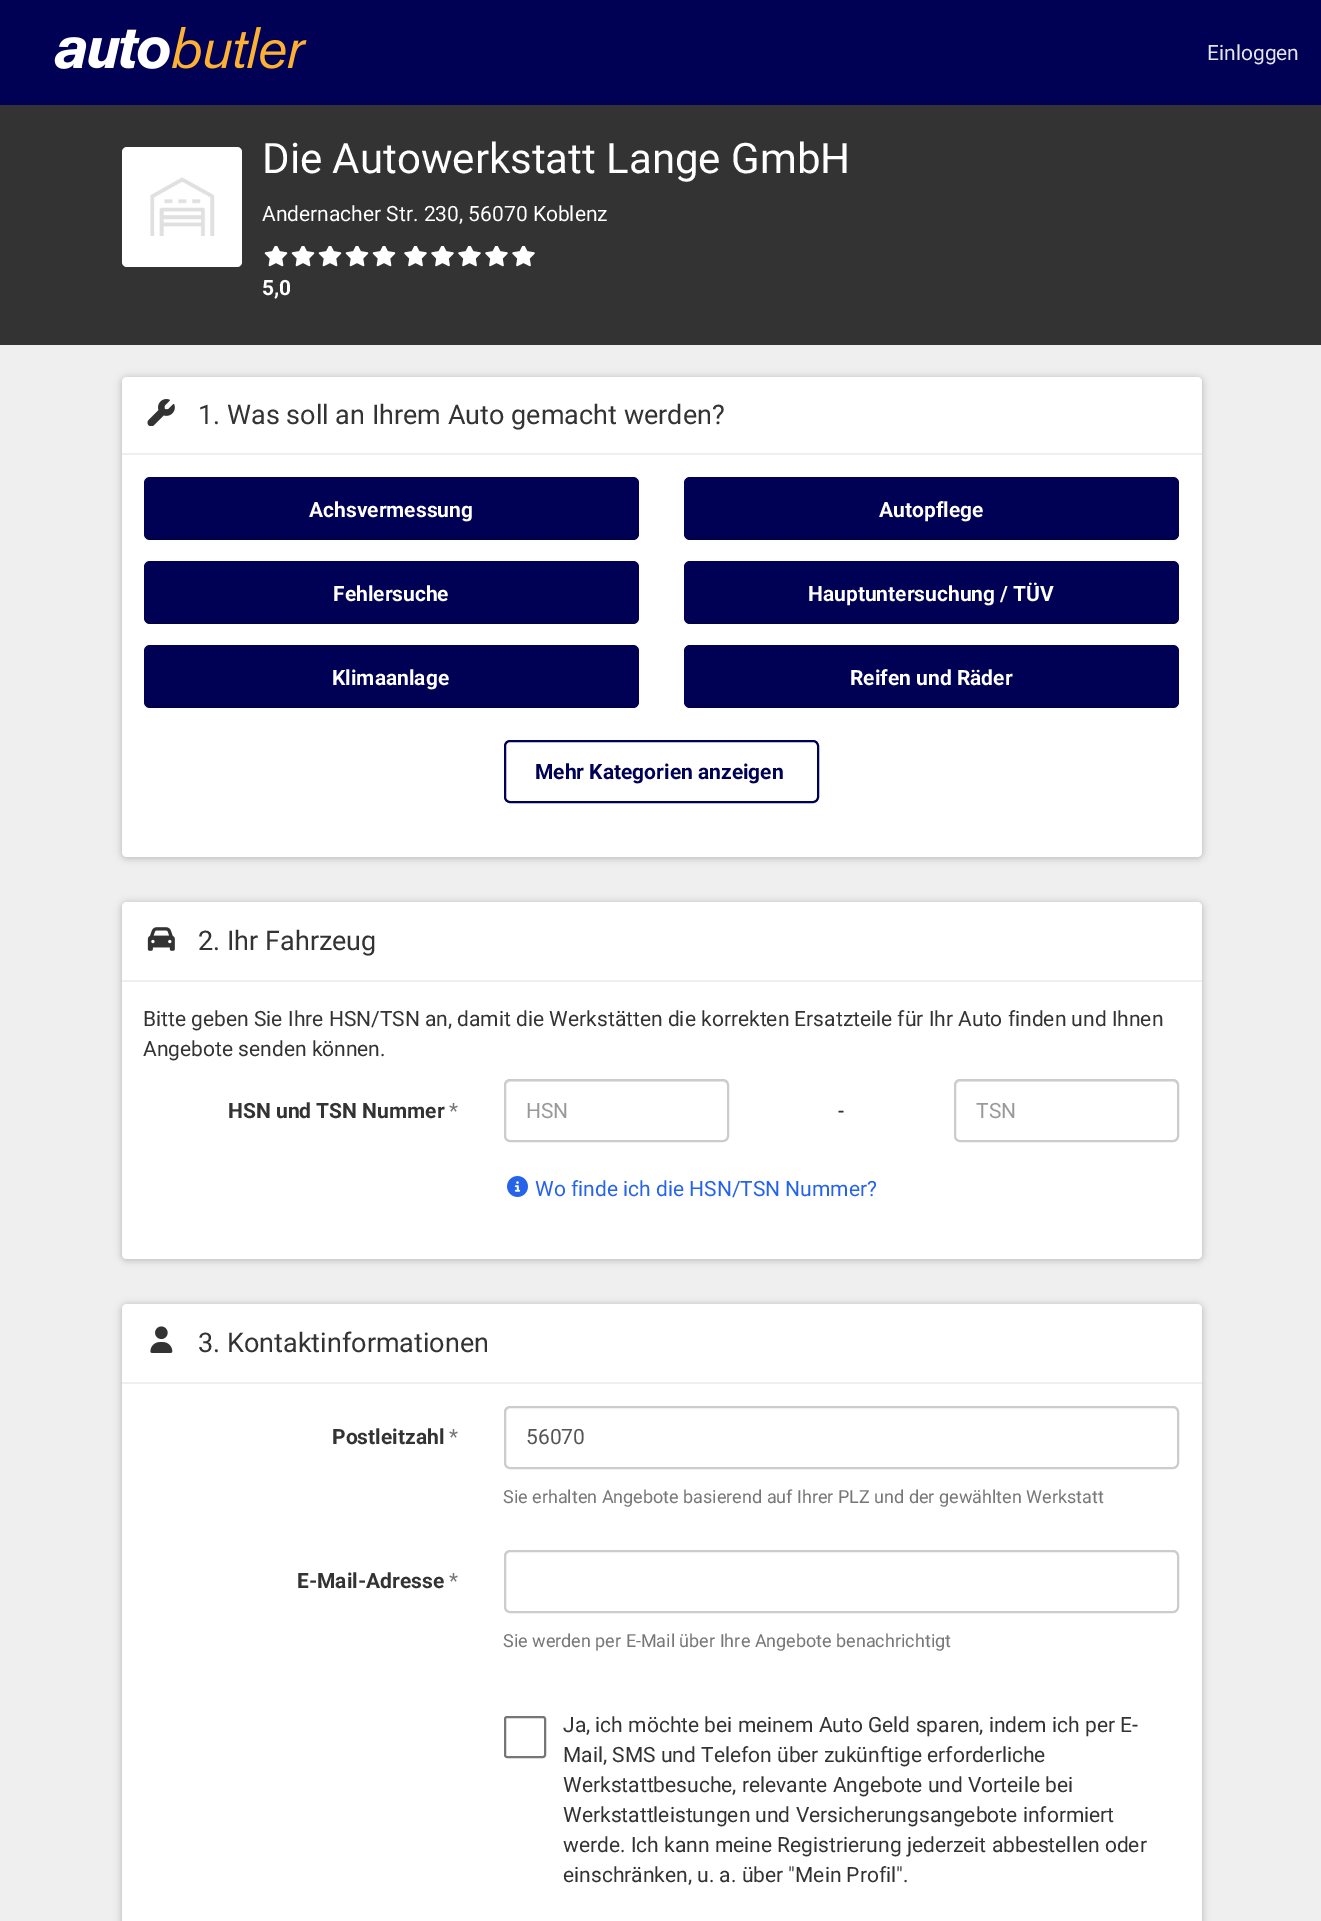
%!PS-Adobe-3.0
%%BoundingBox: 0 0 1321 1921
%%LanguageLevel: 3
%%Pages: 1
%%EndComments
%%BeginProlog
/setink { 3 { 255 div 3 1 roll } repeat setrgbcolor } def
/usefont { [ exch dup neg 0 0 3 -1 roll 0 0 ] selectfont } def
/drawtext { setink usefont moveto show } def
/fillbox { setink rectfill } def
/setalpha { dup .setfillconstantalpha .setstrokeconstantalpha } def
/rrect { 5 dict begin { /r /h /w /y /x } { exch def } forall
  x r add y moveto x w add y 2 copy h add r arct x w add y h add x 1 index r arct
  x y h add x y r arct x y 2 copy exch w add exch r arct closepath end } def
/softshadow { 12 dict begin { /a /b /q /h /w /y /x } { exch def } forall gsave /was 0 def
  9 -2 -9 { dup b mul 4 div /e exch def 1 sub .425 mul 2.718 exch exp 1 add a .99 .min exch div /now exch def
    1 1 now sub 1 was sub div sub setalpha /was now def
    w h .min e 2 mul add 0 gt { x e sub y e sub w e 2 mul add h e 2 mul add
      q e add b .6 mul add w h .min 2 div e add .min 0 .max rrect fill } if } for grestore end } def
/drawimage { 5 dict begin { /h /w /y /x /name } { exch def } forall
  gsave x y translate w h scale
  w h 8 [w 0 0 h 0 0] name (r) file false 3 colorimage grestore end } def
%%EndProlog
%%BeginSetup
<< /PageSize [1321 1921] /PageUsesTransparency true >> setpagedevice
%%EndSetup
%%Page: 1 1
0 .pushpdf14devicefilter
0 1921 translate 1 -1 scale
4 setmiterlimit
0 0 1321 1921 239 239 239 fillbox
0 0 1321 105 0 0 84 fillbox
(assets/img1.rgb) 54 27 253 42 drawimage
(Einloggen) 1207 60 /Roboto-Regular 21 230 230 238 drawtext
0 105 1321 240 51 51 51 fillbox
255 255 255 setink
122 147 120 120 5 rrect fill
(assets/img2.rgb) 150 177 65 59 drawimage
(Die Autowerkstatt Lange GmbH) 262 173 /Roboto-Regular 42 255 255 255 drawtext
(Andernacher Str. 230, 56070 Koblenz) 262 221 /Roboto-Regular 21 255 255 255 drawtext
(assets/img3.rgb) 264 246 24 21 drawimage
(assets/img3.rgb) 291 246 24 21 drawimage
(assets/img3.rgb) 318 246 24 21 drawimage
(assets/img3.rgb) 345 246 24 21 drawimage
(assets/img3.rgb) 372 246 24 21 drawimage
(assets/img4.rgb) 404 246 23 21 drawimage
(assets/img4.rgb) 431 246 23 21 drawimage
(assets/img4.rgb) 458 246 23 21 drawimage
(assets/img4.rgb) 485 246 23 21 drawimage
(assets/img4.rgb) 512 246 23 21 drawimage
(5,0) 262 295 /Roboto-Bold 21 255 255 255 drawtext
0 0 0 setink
122 378 1080 480 5 3 0.12 softshadow
122 378 1080 480 5 4.5 0.12 softshadow
255 255 255 setink
127 377 moveto 1197 377 lineto 1200 377 1202 379 1202 382 curveto 1202 453 lineto 122 453 lineto 122 382 lineto 122 379 124 377 127 377 curveto closepath fill
(assets/img5.rgb) 147 399 28 27 drawimage
(1. Was soll an Ihrem Auto gemacht werden?) 198 424 /Roboto-Regular 27 51 51 51 drawtext
255 255 255 setink
122 453 moveto 1202 453 lineto 1202 852 lineto 1202 855 1200 857 1197 857 curveto 127 857 lineto 124 857 122 855 122 852 curveto closepath fill
122 453 1080 2 239 239 239 fillbox
0 0 84 setink
144 477 495 63 6 rrect fill
0 0 76 setink
146 532 moveto 146 534 lineto 146 537 148 539 151 539 curveto 633 539 lineto 636 539 638 537 638 534 curveto 638 532 lineto 638 535 635 537 633 537 curveto 150 537 lineto 148 537 146 535 146 532 curveto closepath fill
0.1 setalpha
0 0 0 setink
1.5 setlinewidth
636.5 537.5 moveto 635.5 538.5 634.5 539 633 539 curveto 150 539 lineto 148.5 539 147.5 538.5 146.5 537.5 curveto stroke
1 setalpha
(Achsvermessung) 309 517 /Roboto-Bold 21 255 255 255 drawtext
0 0 84 setink
684 477 495 63 6 rrect fill
0 0 76 setink
686 532 moveto 686 534 lineto 686 537 688 539 691 539 curveto 1173 539 lineto 1176 539 1178 537 1178 534 curveto 1178 532 lineto 1178 535 1175 537 1173 537 curveto 690 537 lineto 688 537 686 535 686 532 curveto closepath fill
0.1 setalpha
0 0 0 setink
1176.5 537.5 moveto 1175.5 538.5 1174.5 539 1173 539 curveto 690 539 lineto 688.5 539 687.5 538.5 686.5 537.5 curveto stroke
1 setalpha
(Autopflege) 879 517 /Roboto-Bold 21 255 255 255 drawtext
0 0 84 setink
144 561 495 63 6 rrect fill
0 0 76 setink
146 616 moveto 146 618 lineto 146 621 148 623 151 623 curveto 633 623 lineto 636 623 638 621 638 618 curveto 638 616 lineto 638 619 635 621 633 621 curveto 150 621 lineto 148 621 146 619 146 616 curveto closepath fill
0.1 setalpha
0 0 0 setink
636.5 621.5 moveto 635.5 622.5 634.5 623 633 623 curveto 150 623 lineto 148.5 623 147.5 622.5 146.5 621.5 curveto stroke
1 setalpha
(Fehlersuche) 333 601 /Roboto-Bold 21 255 255 255 drawtext
0 0 84 setink
684 561 495 63 6 rrect fill
0 0 76 setink
686 616 moveto 686 618 lineto 686 621 688 623 691 623 curveto 1173 623 lineto 1176 623 1178 621 1178 618 curveto 1178 616 lineto 1178 619 1175 621 1173 621 curveto 690 621 lineto 688 621 686 619 686 616 curveto closepath fill
0.1 setalpha
0 0 0 setink
1176.5 621.5 moveto 1175.5 622.5 1174.5 623 1173 623 curveto 690 623 lineto 688.5 623 687.5 622.5 686.5 621.5 curveto stroke
1 setalpha
(Hauptuntersuchung / TÜV) 808 601 /Roboto-Bold 21 255 255 255 drawtext
0 0 84 setink
144 645 495 63 6 rrect fill
0 0 76 setink
146 700 moveto 146 702 lineto 146 705 148 707 151 707 curveto 633 707 lineto 636 707 638 705 638 702 curveto 638 700 lineto 638 703 635 705 633 705 curveto 150 705 lineto 148 705 146 703 146 700 curveto closepath fill
0.1 setalpha
0 0 0 setink
636.5 705.5 moveto 635.5 706.5 634.5 707 633 707 curveto 150 707 lineto 148.5 707 147.5 706.5 146.5 705.5 curveto stroke
1 setalpha
(Klimaanlage) 332 685 /Roboto-Bold 21 255 255 255 drawtext
0 0 84 setink
684 645 495 63 6 rrect fill
0 0 76 setink
686 700 moveto 686 702 lineto 686 705 688 707 691 707 curveto 1173 707 lineto 1176 707 1178 705 1178 702 curveto 1178 700 lineto 1178 703 1175 705 1173 705 curveto 690 705 lineto 688 705 686 703 686 700 curveto closepath fill
0.1 setalpha
0 0 0 setink
1176.5 705.5 moveto 1175.5 706.5 1174.5 707 1173 707 curveto 690 707 lineto 688.5 707 687.5 706.5 686.5 705.5 curveto stroke
1 setalpha
(Reifen und Räder) 850 685 /Roboto-Bold 21 255 255 255 drawtext
0 0 84 setink
2 setlinewidth
505 741 313 61 5 rrect stroke
(Mehr Kategorien anzeigen) 535 779 /Roboto-Bold 21 0 0 84 drawtext
0 0 0 setink
122 903 1080 357 5 3 0.12 softshadow
122 903 1080 357 5 4.5 0.12 softshadow
255 255 255 setink
127 902 moveto 1197 902 lineto 1200 902 1202 904 1202 907 curveto 1202 980 lineto 122 980 lineto 122 907 lineto 122 904 124 902 127 902 curveto closepath fill
(assets/img6.rgb) 147 927 28 24 drawimage
(2. Ihr Fahrzeug) 198 950 /Roboto-Regular 27 51 51 51 drawtext
255 255 255 setink
122 980 moveto 1202 980 lineto 1202 1254 lineto 1202 1257 1200 1259 1197 1259 curveto 127 1259 lineto 124 1259 122 1257 122 1254 curveto closepath fill
122 980 1080 2 239 239 239 fillbox
(Bitte geben Sie Ihre HSN/TSN an, damit die Werkstätten die korrekten Ersatzteile für Ihr Auto finden und Ihnen) 143 1026 /Roboto-Regular 21 51 51 51 drawtext
(Angebote senden können.) 143 1056 /Roboto-Regular 21 51 51 51 drawtext
(HSN und TSN Nummer) 228 1118 /Roboto-Bold 21 51 51 51 drawtext
(*) 449 1118 /Roboto-Regular 21 119 119 119 drawtext
236 236 236 setink
510 1082 moveto 723 1082 lineto 725 1082 728 1084 728 1086 curveto 728 1085 lineto 728 1082 726 1080 723 1080 curveto 511 1080 lineto 508 1080 506 1082 506 1085 curveto 506 1086 lineto 506 1084 508 1082 510 1082 curveto closepath fill
204 204 204 setink
505 1080 223 61 5 rrect stroke
(HSN) 526 1118 /Roboto-Regular 21 153 153 153 drawtext
(-) 838 1118 /Roboto-Regular 21 51 51 51 drawtext
236 236 236 setink
960 1082 moveto 1173 1082 lineto 1175 1082 1178 1084 1178 1086 curveto 1178 1085 lineto 1178 1082 1176 1080 1173 1080 curveto 961 1080 lineto 958 1080 956 1082 956 1085 curveto 956 1086 lineto 956 1084 958 1082 960 1082 curveto closepath fill
204 204 204 setink
955 1080 223 61 5 rrect stroke
(TSN) 976 1118 /Roboto-Regular 21 153 153 153 drawtext
(assets/img7.rgb) 507 1176 21 21 drawimage
(Wo finde ich die HSN/TSN Nummer?) 535 1196 /Roboto-Regular 21 37 99 235 drawtext
0 0 0 setink
122 1305 1080 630 5 3 0.12 softshadow
122 1305 1080 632 5 4.5 0.12 softshadow
255 255 255 setink
127 1304 moveto 1197 1304 lineto 1200 1304 1202 1306 1202 1309 curveto 1202 1382 lineto 122 1382 lineto 122 1309 lineto 122 1306 124 1304 127 1304 curveto closepath fill
(assets/img8.rgb) 150 1326 23 27 drawimage
(3. Kontaktinformationen) 198 1352 /Roboto-Regular 27 51 51 51 drawtext
122 1384 1080 537 255 255 255 fillbox
122 1382 1080 2 239 239 239 fillbox
(Postleitzahl) 332 1444 /Roboto-Bold 21 51 51 51 drawtext
(*) 449 1444 /Roboto-Regular 21 119 119 119 drawtext
236 236 236 setink
510 1408 moveto 1173 1408 lineto 1175 1408 1178 1411 1178 1413 curveto 1178 1412 lineto 1178 1409 1176 1407 1173 1407 curveto 511 1407 lineto 508 1407 506 1409 506 1412 curveto 506 1413 lineto 506 1411 508 1408 510 1408 curveto closepath fill
204 204 204 setink
505 1407 673 61 5 rrect stroke
(56070) 526 1444 /Roboto-Regular 21 85 85 85 drawtext
(Sie erhalten Angebote basierend auf Ihrer PLZ und der gewählten Werkstatt) 503 1503 /Roboto-Regular 18 119 119 119 drawtext
(E-Mail-Adresse) 297 1588 /Roboto-Bold 21 51 51 51 drawtext
(*) 449 1588 /Roboto-Regular 21 119 119 119 drawtext
236 236 236 setink
510 1552 moveto 1173 1552 lineto 1175 1552 1178 1555 1178 1557 curveto 1178 1556 lineto 1178 1553 1176 1551 1173 1551 curveto 511 1551 lineto 508 1551 506 1553 506 1556 curveto 506 1557 lineto 506 1555 508 1552 510 1552 curveto closepath fill
204 204 204 setink
505 1551 673 61 5 rrect stroke
(Sie werden per E-Mail über Ihre Angebote benachrichtigt) 503 1647 /Roboto-Regular 18 119 119 119 drawtext
118 118 118 setink
505 1717 40 40 2 rrect stroke
(Ja, ich möchte bei meinem Auto Geld sparen, indem ich per E-) 563 1732 /Roboto-Regular 21 51 51 51 drawtext
(Mail, SMS und Telefon über zukünftige erforderliche) 563 1762 /Roboto-Regular 21 51 51 51 drawtext
(Werkstattbesuche, relevante Angebote und Vorteile bei) 563 1792 /Roboto-Regular 21 51 51 51 drawtext
(Werkstattleistungen und Versicherungsangebote informiert) 563 1822 /Roboto-Regular 21 51 51 51 drawtext
(werde. Ich kann meine Registrierung jederzeit abbestellen oder) 563 1852 /Roboto-Regular 21 51 51 51 drawtext
(einschränken, u. a. über "Mein Profil".) 563 1882 /Roboto-Regular 21 51 51 51 drawtext
.poppdf14devicefilter showpage
%%EOF
